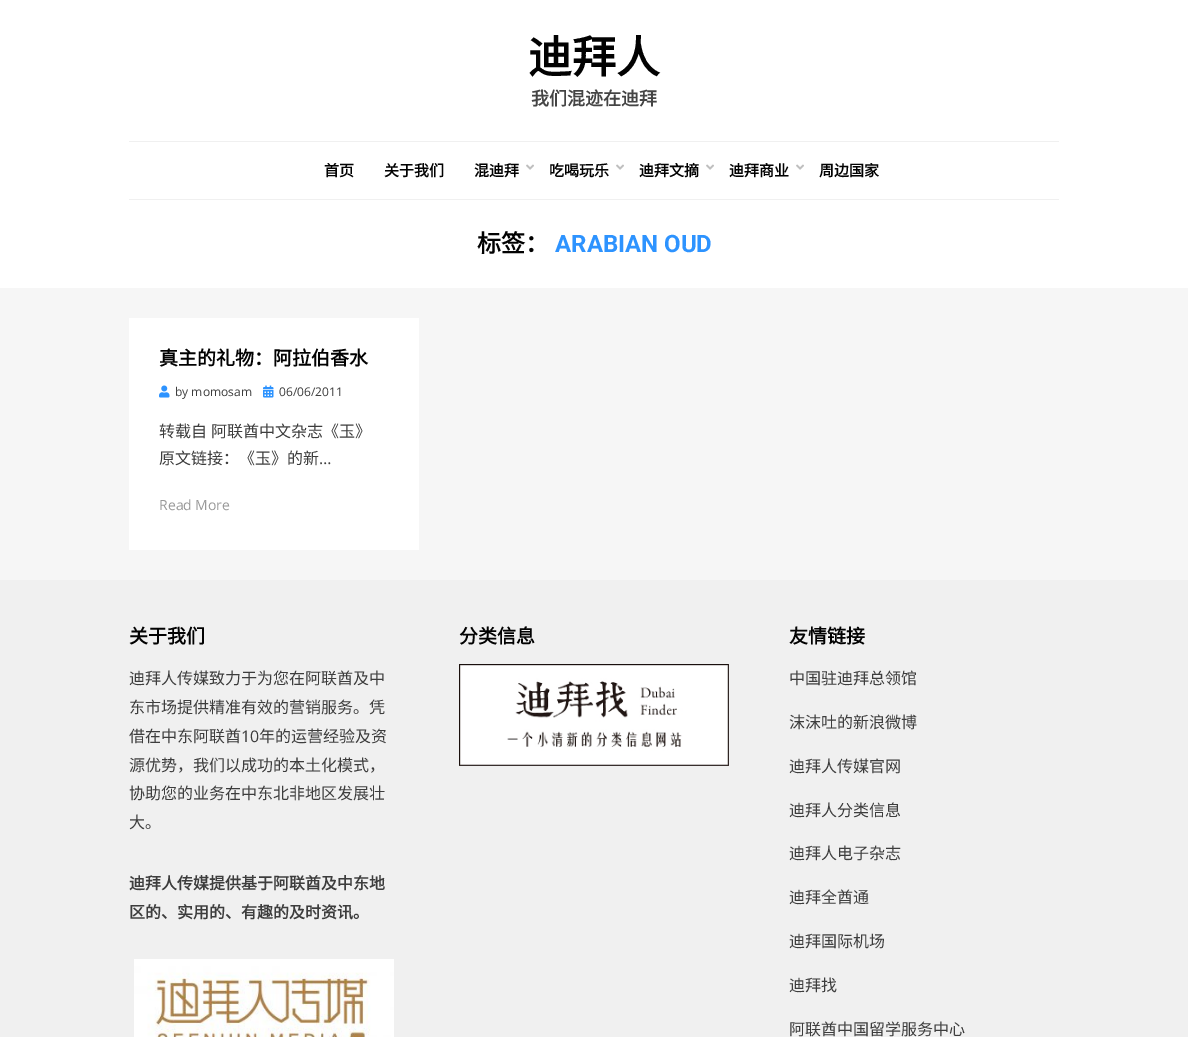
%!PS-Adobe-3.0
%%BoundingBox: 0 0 1188 1037
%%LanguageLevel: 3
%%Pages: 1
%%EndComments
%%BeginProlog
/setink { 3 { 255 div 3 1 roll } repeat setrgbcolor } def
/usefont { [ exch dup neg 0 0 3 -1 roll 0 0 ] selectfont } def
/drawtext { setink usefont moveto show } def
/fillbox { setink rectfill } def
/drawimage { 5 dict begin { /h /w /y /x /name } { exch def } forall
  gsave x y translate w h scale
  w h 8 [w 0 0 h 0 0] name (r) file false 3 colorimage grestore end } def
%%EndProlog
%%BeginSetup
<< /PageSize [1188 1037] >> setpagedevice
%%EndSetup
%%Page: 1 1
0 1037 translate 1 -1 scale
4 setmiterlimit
0 0 1188 1037 246 246 246 fillbox
0 0 1188 288 255 255 255 fillbox
(迪拜人) 528 73 /NotoSansCJKSC-Bold 44 2 2 2 drawtext
(我们混迹在迪拜) 531 105 /NotoSansCJKSC-Bold 18 68 68 68 drawtext
129 141 930 1 240 240 240 fillbox
129 199 930 1 240 240 240 fillbox
(首页) 324 176 /NotoSansCJKSC-Bold 15 2 2 2 drawtext
(关于我们) 384 176 /NotoSansCJKSC-Bold 15 2 2 2 drawtext
(混迪拜) 474 176 /NotoSansCJKSC-Bold 15 2 2 2 drawtext
(assets/img1.rgb) 526 164 8 6 drawimage
(吃喝玩乐) 549 176 /NotoSansCJKSC-Bold 15 2 2 2 drawtext
(assets/img1.rgb) 616 164 8 6 drawimage
(迪拜文摘) 639 176 /NotoSansCJKSC-Bold 15 2 2 2 drawtext
(assets/img1.rgb) 706 164 8 6 drawimage
(迪拜商业) 729 176 /NotoSansCJKSC-Bold 15 2 2 2 drawtext
(assets/img1.rgb) 796 164 8 6 drawimage
(周边国家) 819 176 /NotoSansCJKSC-Bold 15 2 2 2 drawtext
(标签：) 477 252 /NotoSansCJKSC-Bold 24 2 2 2 drawtext
(ARABIAN OUD) 555 252 /Roboto-Bold 24 45 147 255 drawtext
129 318 290 232 255 255 255 fillbox
(真主的礼物：阿拉伯香水) 159 365 /NotoSansCJKSC-Bold 19 2 2 2 drawtext
(assets/img2.rgb) 159 385 11 13 drawimage
(by momosam) 175 396 /OpenSans-Regular 12 61 61 61 drawtext
(assets/img3.rgb) 263 385 11 13 drawimage
(06/06/2011) 279 396 /OpenSans-Regular 12 61 61 61 drawtext
(转载自) 159 437 /NotoSansCJKSC-Regular 16 61 61 61 drawtext
(阿联酋中文杂志《玉》) 211 437 /NotoSansCJKSC-Regular 16 61 61 61 drawtext
(原文链接：《玉》的新) 159 464 /NotoSansCJKSC-Regular 16 61 61 61 drawtext
(…) 319 464 /OpenSans-Regular 16 61 61 61 drawtext
(Read More) 159 510 /OpenSans-Regular 14 153 153 153 drawtext
0 580 1188 457 240 240 240 fillbox
(关于我们) 129 643 /NotoSansCJKSC-Bold 19 2 2 2 drawtext
(迪拜人传媒致力于为您在阿联酋及中) 129 684 /NotoSansCJKSC-Regular 16 61 61 61 drawtext
(东市场提供精准有效的营销服务。凭) 129 713 /NotoSansCJKSC-Regular 16 61 61 61 drawtext
(借在中东阿联酋) 129 742 /NotoSansCJKSC-Regular 16 61 61 61 drawtext
(10) 241 742 /OpenSans-Regular 16 61 61 61 drawtext
(年的运营经验及资) 259 742 /NotoSansCJKSC-Regular 16 61 61 61 drawtext
(源优势，我们以成功的本土化模式，) 129 771 /NotoSansCJKSC-Regular 16 61 61 61 drawtext
(协助您的业务在中东北非地区发展壮) 129 799 /NotoSansCJKSC-Regular 16 61 61 61 drawtext
(大。) 129 828 /NotoSansCJKSC-Regular 16 61 61 61 drawtext
(迪拜人传媒提供基于阿联酋及中东地) 129 889 /NotoSansCJKSC-Bold 16 61 61 61 drawtext
(区的、实用的、有趣的及时资讯。) 129 918 /NotoSansCJKSC-Bold 16 61 61 61 drawtext
(assets/img4.rgb) 134 959 260 78 drawimage
(分类信息) 459 643 /NotoSansCJKSC-Bold 19 2 2 2 drawtext
(assets/img5.rgb) 459 664 270 102 drawimage
(友情链接) 789 643 /NotoSansCJKSC-Bold 19 2 2 2 drawtext
(中国驻迪拜总领馆) 789 684 /NotoSansCJKSC-Regular 16 61 61 61 drawtext
(沫沫吐的新浪微博) 789 728 /NotoSansCJKSC-Regular 16 61 61 61 drawtext
(迪拜人传媒官网) 789 772 /NotoSansCJKSC-Regular 16 61 61 61 drawtext
(迪拜人分类信息) 789 816 /NotoSansCJKSC-Regular 16 61 61 61 drawtext
(迪拜人电子杂志) 789 859 /NotoSansCJKSC-Regular 16 61 61 61 drawtext
(迪拜全酋通) 789 903 /NotoSansCJKSC-Regular 16 61 61 61 drawtext
(迪拜国际机场) 789 947 /NotoSansCJKSC-Regular 16 61 61 61 drawtext
(迪拜找) 789 991 /NotoSansCJKSC-Regular 16 61 61 61 drawtext
(阿联酋中国留学服务中心) 789 1035 /NotoSansCJKSC-Regular 16 61 61 61 drawtext
showpage
%%EOF
